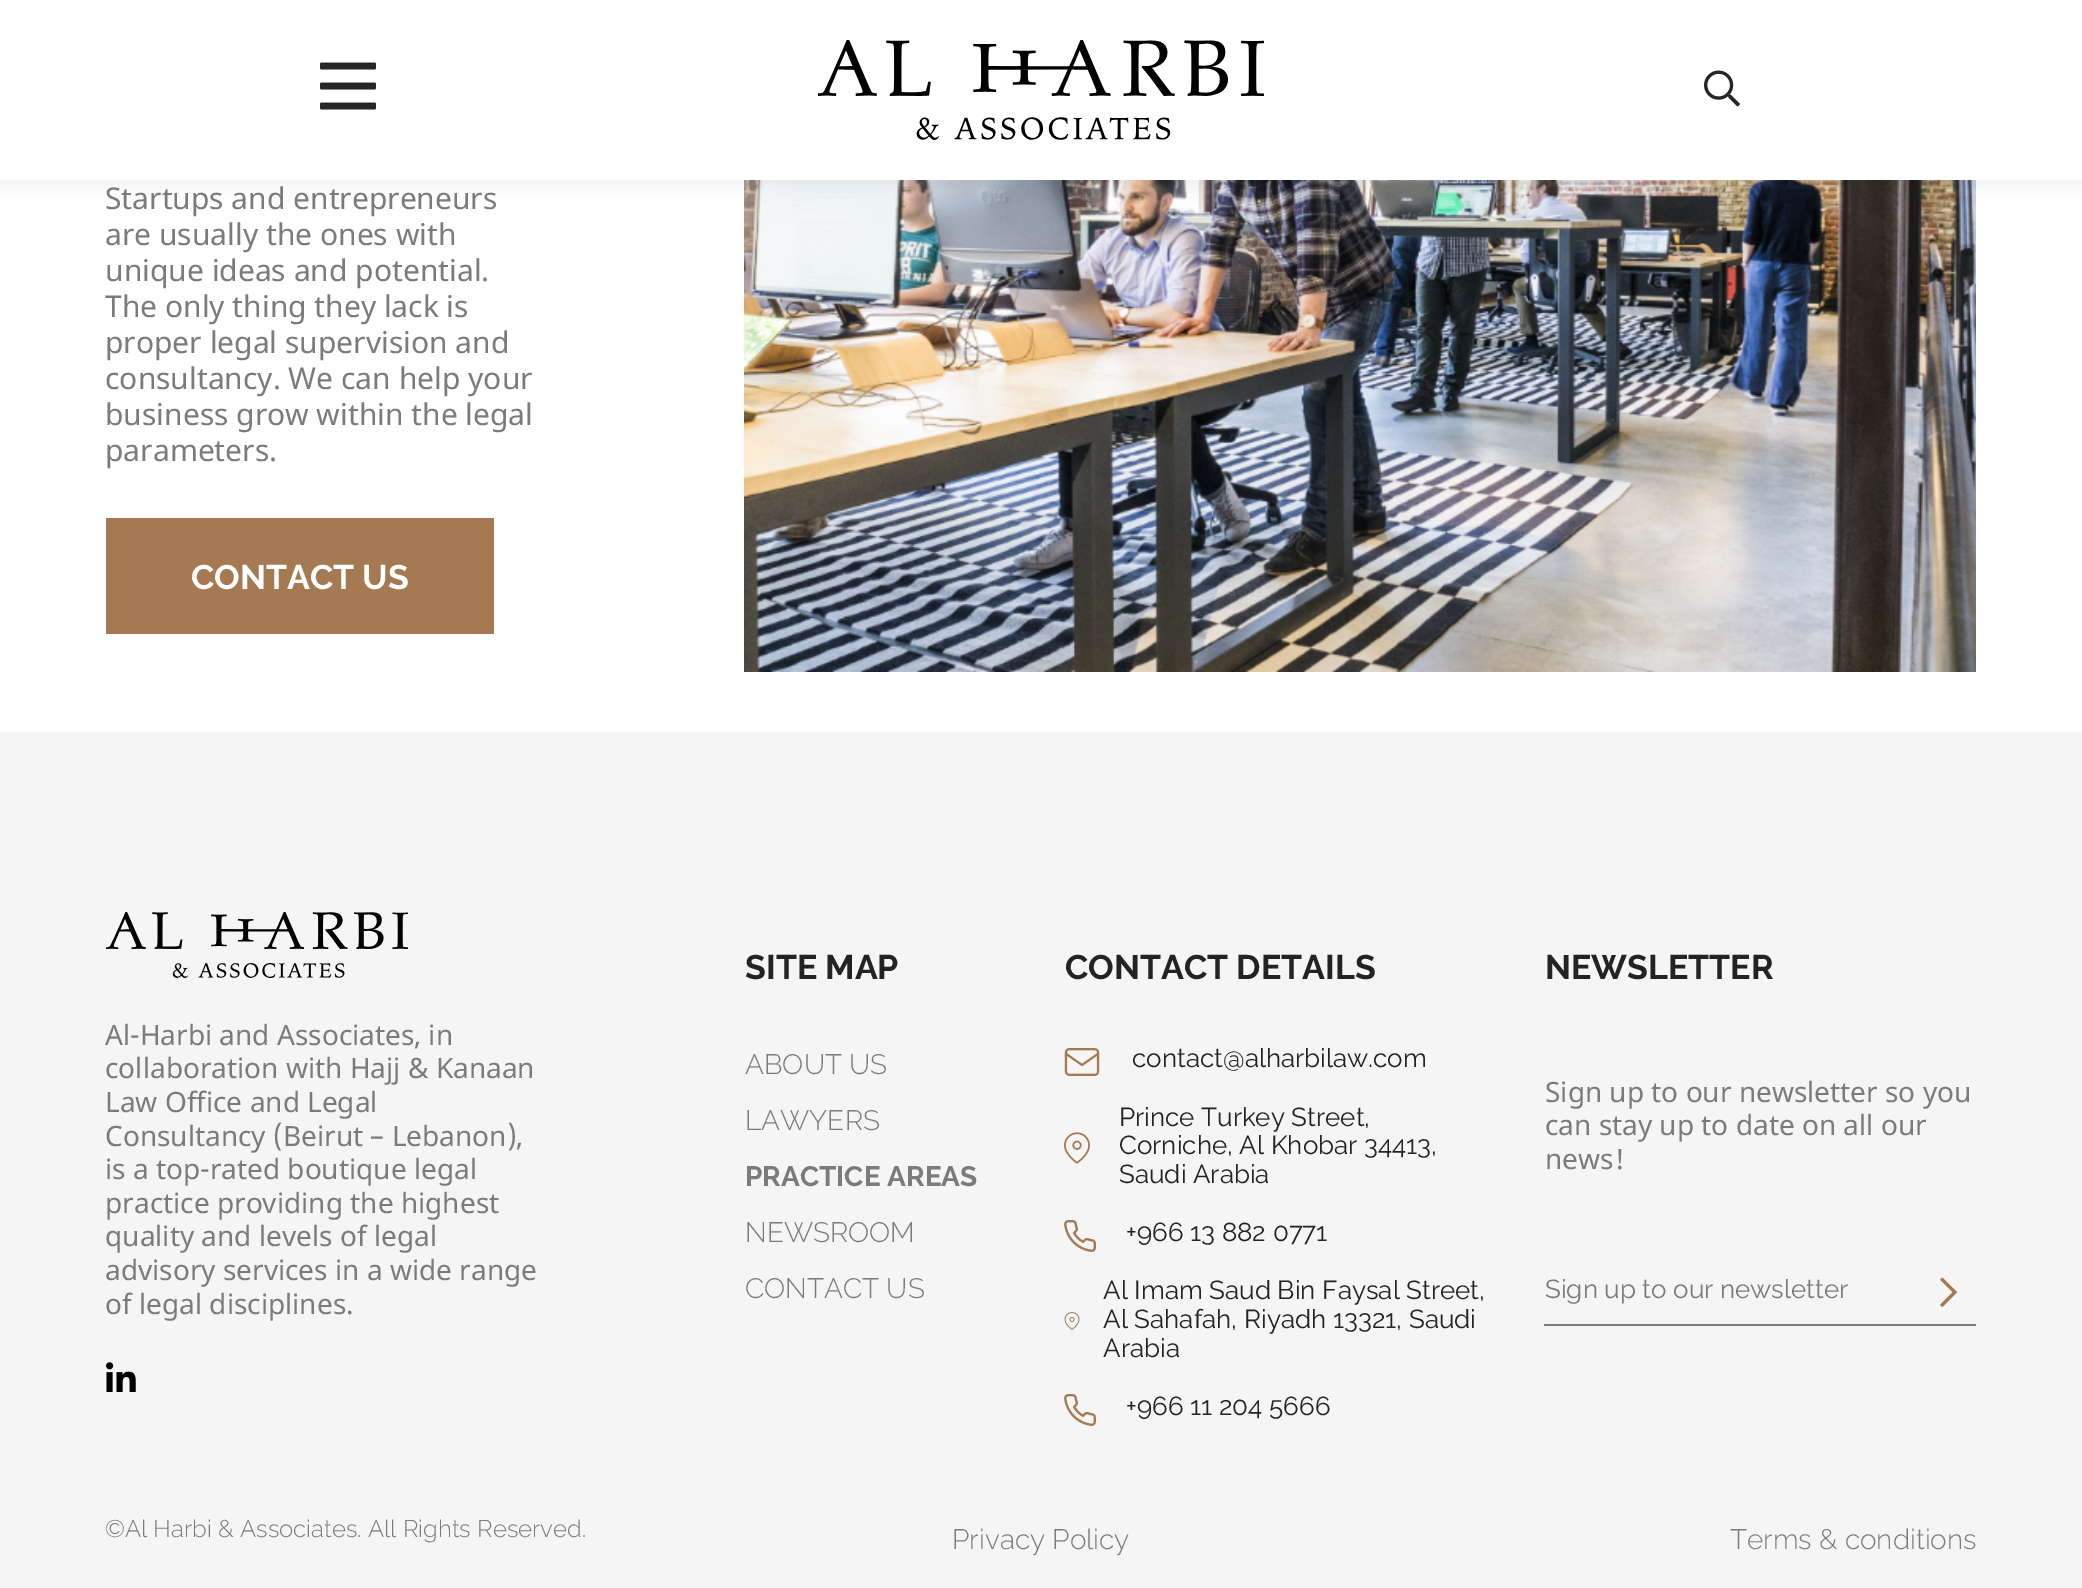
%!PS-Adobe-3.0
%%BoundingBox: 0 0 2082 1588
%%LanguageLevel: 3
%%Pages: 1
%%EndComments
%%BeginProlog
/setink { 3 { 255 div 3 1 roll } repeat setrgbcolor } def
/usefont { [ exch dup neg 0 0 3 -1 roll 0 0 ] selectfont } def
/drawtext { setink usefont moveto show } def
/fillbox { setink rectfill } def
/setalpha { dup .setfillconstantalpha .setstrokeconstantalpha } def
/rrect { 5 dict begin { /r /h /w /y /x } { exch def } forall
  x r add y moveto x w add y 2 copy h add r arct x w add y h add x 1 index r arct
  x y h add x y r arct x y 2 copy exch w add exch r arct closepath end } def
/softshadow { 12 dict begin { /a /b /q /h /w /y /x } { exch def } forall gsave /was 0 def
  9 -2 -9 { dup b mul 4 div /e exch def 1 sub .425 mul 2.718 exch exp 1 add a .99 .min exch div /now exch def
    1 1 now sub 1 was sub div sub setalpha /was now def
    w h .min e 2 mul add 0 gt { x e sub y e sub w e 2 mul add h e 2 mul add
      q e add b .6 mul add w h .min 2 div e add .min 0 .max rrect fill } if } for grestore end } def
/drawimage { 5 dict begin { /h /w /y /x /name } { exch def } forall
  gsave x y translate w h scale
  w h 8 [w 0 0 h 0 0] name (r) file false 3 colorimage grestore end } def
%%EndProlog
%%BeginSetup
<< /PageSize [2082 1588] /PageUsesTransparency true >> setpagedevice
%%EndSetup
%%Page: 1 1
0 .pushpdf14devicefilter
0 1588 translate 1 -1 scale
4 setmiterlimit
0 0 2082 1588 255 255 255 fillbox
(assets/img4.rgb) 744 180 1232 492 drawimage
0 0 0 setink
-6 -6 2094 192 0 10 0.05 softshadow
0 0 2082 180 255 255 255 fillbox
(assets/img1.rgb) 320 62 56 48 drawimage
(assets/img2.rgb) 818 40 446 100 drawimage
(assets/img3.rgb) 1704 70 36 37 drawimage
(Startups and entrepreneurs) 105 209 /NotoSans-Regular 30 124 123 122 drawtext
(are usually the ones with) 105 245 /NotoSans-Regular 30 124 123 122 drawtext
(unique ideas and potential.) 105 281 /NotoSans-Regular 30 124 123 122 drawtext
(The only thing they lack is) 105 317 /NotoSans-Regular 30 124 123 122 drawtext
(proper legal supervision and) 105 353 /NotoSans-Regular 30 124 123 122 drawtext
(consultancy. We can help your) 105 389 /NotoSans-Regular 30 124 123 122 drawtext
(business grow within the legal) 105 425 /NotoSans-Regular 30 124 123 122 drawtext
(parameters.) 105 461 /NotoSans-Regular 30 124 123 122 drawtext
106 518 388 116 165 122 83 fillbox
(CONTACT US) 191 589 /Raleway-Bold 34 255 255 255 drawtext
0 732 2082 856 245 245 245 fillbox
(assets/img5.rgb) 106 912 302 66 drawimage
(Al-Harbi and Associates, in) 105 1045 /NotoSans-Regular 28 124 123 122 drawtext
(collaboration with Hajj & Kanaan) 105 1078 /NotoSans-Regular 28 124 123 122 drawtext
(Law Office and Legal) 105 1112 /NotoSans-Regular 28 124 123 122 drawtext
(Consultancy \(Beirut – Lebanon\),) 105 1146 /NotoSans-Regular 28 124 123 122 drawtext
(is a top-rated boutique legal) 105 1179 /NotoSans-Regular 28 124 123 122 drawtext
(practice providing the highest) 105 1213 /NotoSans-Regular 28 124 123 122 drawtext
(quality and levels of legal) 105 1246 /NotoSans-Regular 28 124 123 122 drawtext
(advisory services in a wide range) 105 1280 /NotoSans-Regular 28 124 123 122 drawtext
(of legal disciplines.) 105 1314 /NotoSans-Regular 28 124 123 122 drawtext
(assets/img6.rgb) 106 1362 30 30 drawimage
(SITE MAP) 745 979 /Raleway-Bold 34 37 35 33 drawtext
(ABOUT US) 745 1074 /Raleway-Light 28 124 123 122 drawtext
(LAWYERS) 745 1130 /Raleway-Light 28 124 123 122 drawtext
(PRACTICE AREAS) 745 1186 /Raleway-Bold 28 124 123 122 drawtext
(NEWSROOM) 745 1242 /Raleway-Light 28 124 123 122 drawtext
(CONTACT US) 745 1298 /Raleway-Light 28 124 123 122 drawtext
(CONTACT DETAILS) 1065 979 /Raleway-Bold 34 37 35 33 drawtext
(assets/img7.rgb) 1064 1048 36 28 drawimage
(contact@alharbilaw.com) 1132 1067 /Raleway-Regular 26 37 35 33 drawtext
(assets/img8.rgb) 1064 1132 26 32 drawimage
(Prince Turkey Street,) 1119 1126 /Raleway-Regular 26 37 35 33 drawtext
(Corniche, Al Khobar 34413,) 1119 1154 /Raleway-Regular 26 37 35 33 drawtext
(Saudi Arabia) 1119 1183 /Raleway-Regular 26 37 35 33 drawtext
(assets/img9.rgb) 1064 1220 32 32 drawimage
(+966 13 882 0771) 1126 1241 /Raleway-Regular 26 37 35 33 drawtext
(assets/img10.rgb) 1064 1312 16 18 drawimage
(Al Imam Saud Bin Faysal Street,) 1103 1299 /Raleway-Regular 26 37 35 33 drawtext
(Al Sahafah, Riyadh 13321, Saudi) 1103 1328 /Raleway-Regular 26 37 35 33 drawtext
(Arabia) 1103 1357 /Raleway-Regular 26 37 35 33 drawtext
(assets/img9.rgb) 1064 1394 32 32 drawimage
(+966 11 204 5666) 1126 1415 /Raleway-Regular 26 37 35 33 drawtext
(NEWSLETTER) 1545 979 /Raleway-Bold 34 37 35 33 drawtext
(Sign up to our newsletter so you) 1545 1102 /NotoSans-Regular 28 124 123 122 drawtext
(can stay up to date on all our) 1545 1135 /NotoSans-Regular 28 124 123 122 drawtext
(news!) 1545 1169 /NotoSans-Regular 28 124 123 122 drawtext
1544 1324 432 2 124 123 122 fillbox
(Sign up to our newsletter) 1545 1298 /Raleway-Regular 26 124 123 122 drawtext
(assets/img11.rgb) 1940 1277 17 30 drawimage
(©Al Harbi & Associates. All Rights Reserved.) 105 1537 /Raleway-Light 24 124 123 122 drawtext
(Privacy Policy) 952 1549 /Raleway-Light 28 124 123 122 drawtext
(Terms & conditions) 1730 1549 /Raleway-Light 28 124 123 122 drawtext
.poppdf14devicefilter showpage
%%EOF
